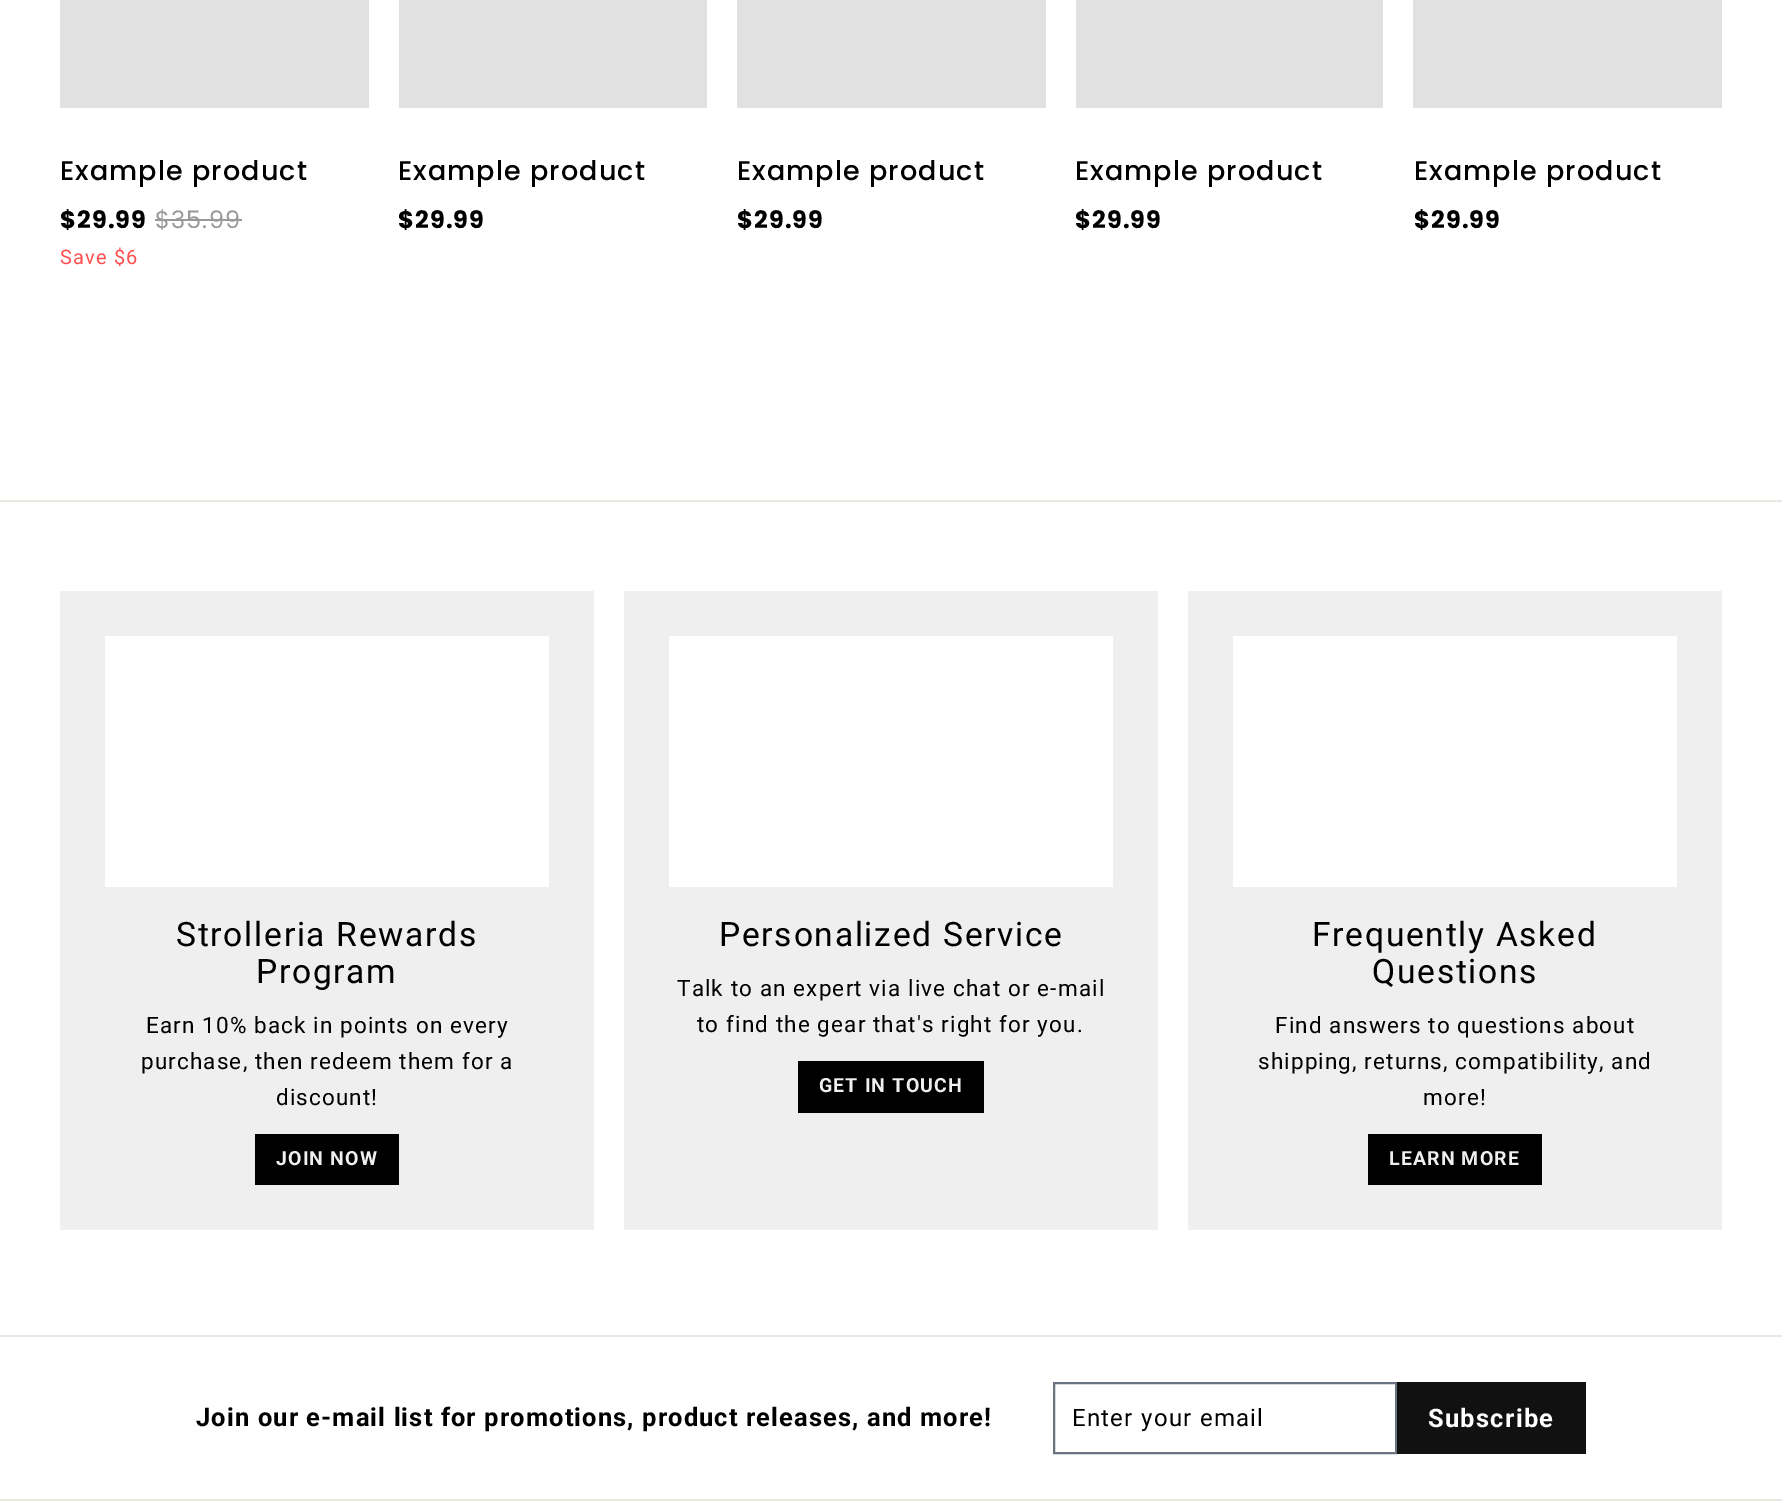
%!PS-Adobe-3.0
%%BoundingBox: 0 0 1782 1509
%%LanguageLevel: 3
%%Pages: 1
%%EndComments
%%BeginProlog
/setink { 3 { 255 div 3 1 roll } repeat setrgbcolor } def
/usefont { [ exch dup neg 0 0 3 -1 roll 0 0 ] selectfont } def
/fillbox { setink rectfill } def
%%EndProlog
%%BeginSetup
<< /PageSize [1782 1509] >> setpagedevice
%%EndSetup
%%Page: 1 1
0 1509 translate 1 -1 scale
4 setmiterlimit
0 0 1782 1509 255 255 255 fillbox
60 0 309 108 225 225 225 fillbox
/Poppins-Medium 27 usefont
0 0 0 setink
60 180 moveto 1.12 0 (Example product) ashow
/Poppins-Bold 24 usefont
60 228 moveto 1.12 0 ($29.99) ashow
/Poppins-Regular 24 usefont
153 153 153 setink
155 228 moveto 1.12 0 ($35.99) ashow
155 219 87 2 153 153 153 fillbox
/Roboto-Regular 20 usefont
255 80 79 setink
60 264 moveto 1.12 0 (Save $6) ashow
399 0 308 108 225 225 225 fillbox
/Poppins-Medium 27 usefont
0 0 0 setink
398 180 moveto 1.12 0 (Example product) ashow
/Poppins-Bold 24 usefont
398 228 moveto 1.12 0 ($29.99) ashow
737 0 309 108 225 225 225 fillbox
/Poppins-Medium 27 usefont
0 0 0 setink
737 180 moveto 1.12 0 (Example product) ashow
/Poppins-Bold 24 usefont
737 228 moveto 1.12 0 ($29.99) ashow
1076 0 307 108 225 225 225 fillbox
/Poppins-Medium 27 usefont
0 0 0 setink
1075 180 moveto 1.12 0 (Example product) ashow
/Poppins-Bold 24 usefont
1075 228 moveto 1.12 0 ($29.99) ashow
1413 0 309 108 225 225 225 fillbox
/Poppins-Medium 27 usefont
0 0 0 setink
1414 180 moveto 1.12 0 (Example product) ashow
/Poppins-Bold 24 usefont
1414 228 moveto 1.12 0 ($29.99) ashow
0 500 1782 2 232 232 225 fillbox
60 591 534 639 239 239 239 fillbox
105 636 444 251 255 255 255 fillbox
/Roboto-Regular 33.6 usefont
0 0 0 setink
176 946 moveto 1.7 0 (Strolleria Rewards) ashow
256 983 moveto 1.7 0 (Program) ashow
/Roboto-Regular 22.5 usefont
146 1033 moveto 1.12 0 (Earn 10% back in points on every) ashow
141 1069 moveto 1.12 0 (purchase, then redeem them for a) ashow
276 1105 moveto 1.12 0 (discount!) ashow
255 1134 144 51 0 0 0 fillbox
/Roboto-Bold 19.5 usefont
239 239 239 setink
276 1165 moveto 1.12 0 (JOIN NOW) ashow
624 591 534 639 239 239 239 fillbox
669 636 444 251 255 255 255 fillbox
/Roboto-Regular 33.6 usefont
0 0 0 setink
719 946 moveto 1.7 0 (Personalized Service) ashow
/Roboto-Regular 22.5 usefont
677 996 moveto 1.12 0 (Talk to an expert via live chat or e-mail) ashow
697 1032 moveto 1.12 0 (to find the gear that's right for you.) ashow
798 1061 186 52 0 0 0 fillbox
/Roboto-Bold 19.5 usefont
239 239 239 setink
819 1092 moveto 1.12 0 (GET IN TOUCH) ashow
1188 591 534 639 239 239 239 fillbox
1233 636 444 251 255 255 255 fillbox
/Roboto-Regular 33.6 usefont
0 0 0 setink
1312 946 moveto 1.7 0 (Frequently Asked) ashow
1372 983 moveto 1.7 0 (Questions) ashow
/Roboto-Regular 22.5 usefont
1275 1033 moveto 1.12 0 (Find answers to questions about) ashow
1258 1069 moveto 1.12 0 (shipping, returns, compatibility, and) ashow
1423 1105 moveto 1.12 0 (more!) ashow
1368 1134 174 51 0 0 0 fillbox
/Roboto-Bold 19.5 usefont
239 239 239 setink
1389 1165 moveto 1.12 0 (LEARN MORE) ashow
0 1335 1782 2 232 232 225 fillbox
/Roboto-Bold 25.5 usefont
0 0 0 setink
196 1426 moveto 1.12 0 (Join our e-mail list for promotions, product releases, and more!) ashow
107 114 128 setink
2 setlinewidth
1054 1383 342 70 rectstroke
/Roboto-Regular 24 usefont
0 0 0 setink
1072 1426 moveto 1.25 0 (Enter your email) ashow
1397 1382 189 72 17 17 17 fillbox
/Roboto-Bold 25.5 usefont
255 255 255 setink
1428 1427 moveto 1.25 0 (Subscribe) ashow
0 1499 1782 2 232 232 225 fillbox
showpage
%%EOF
